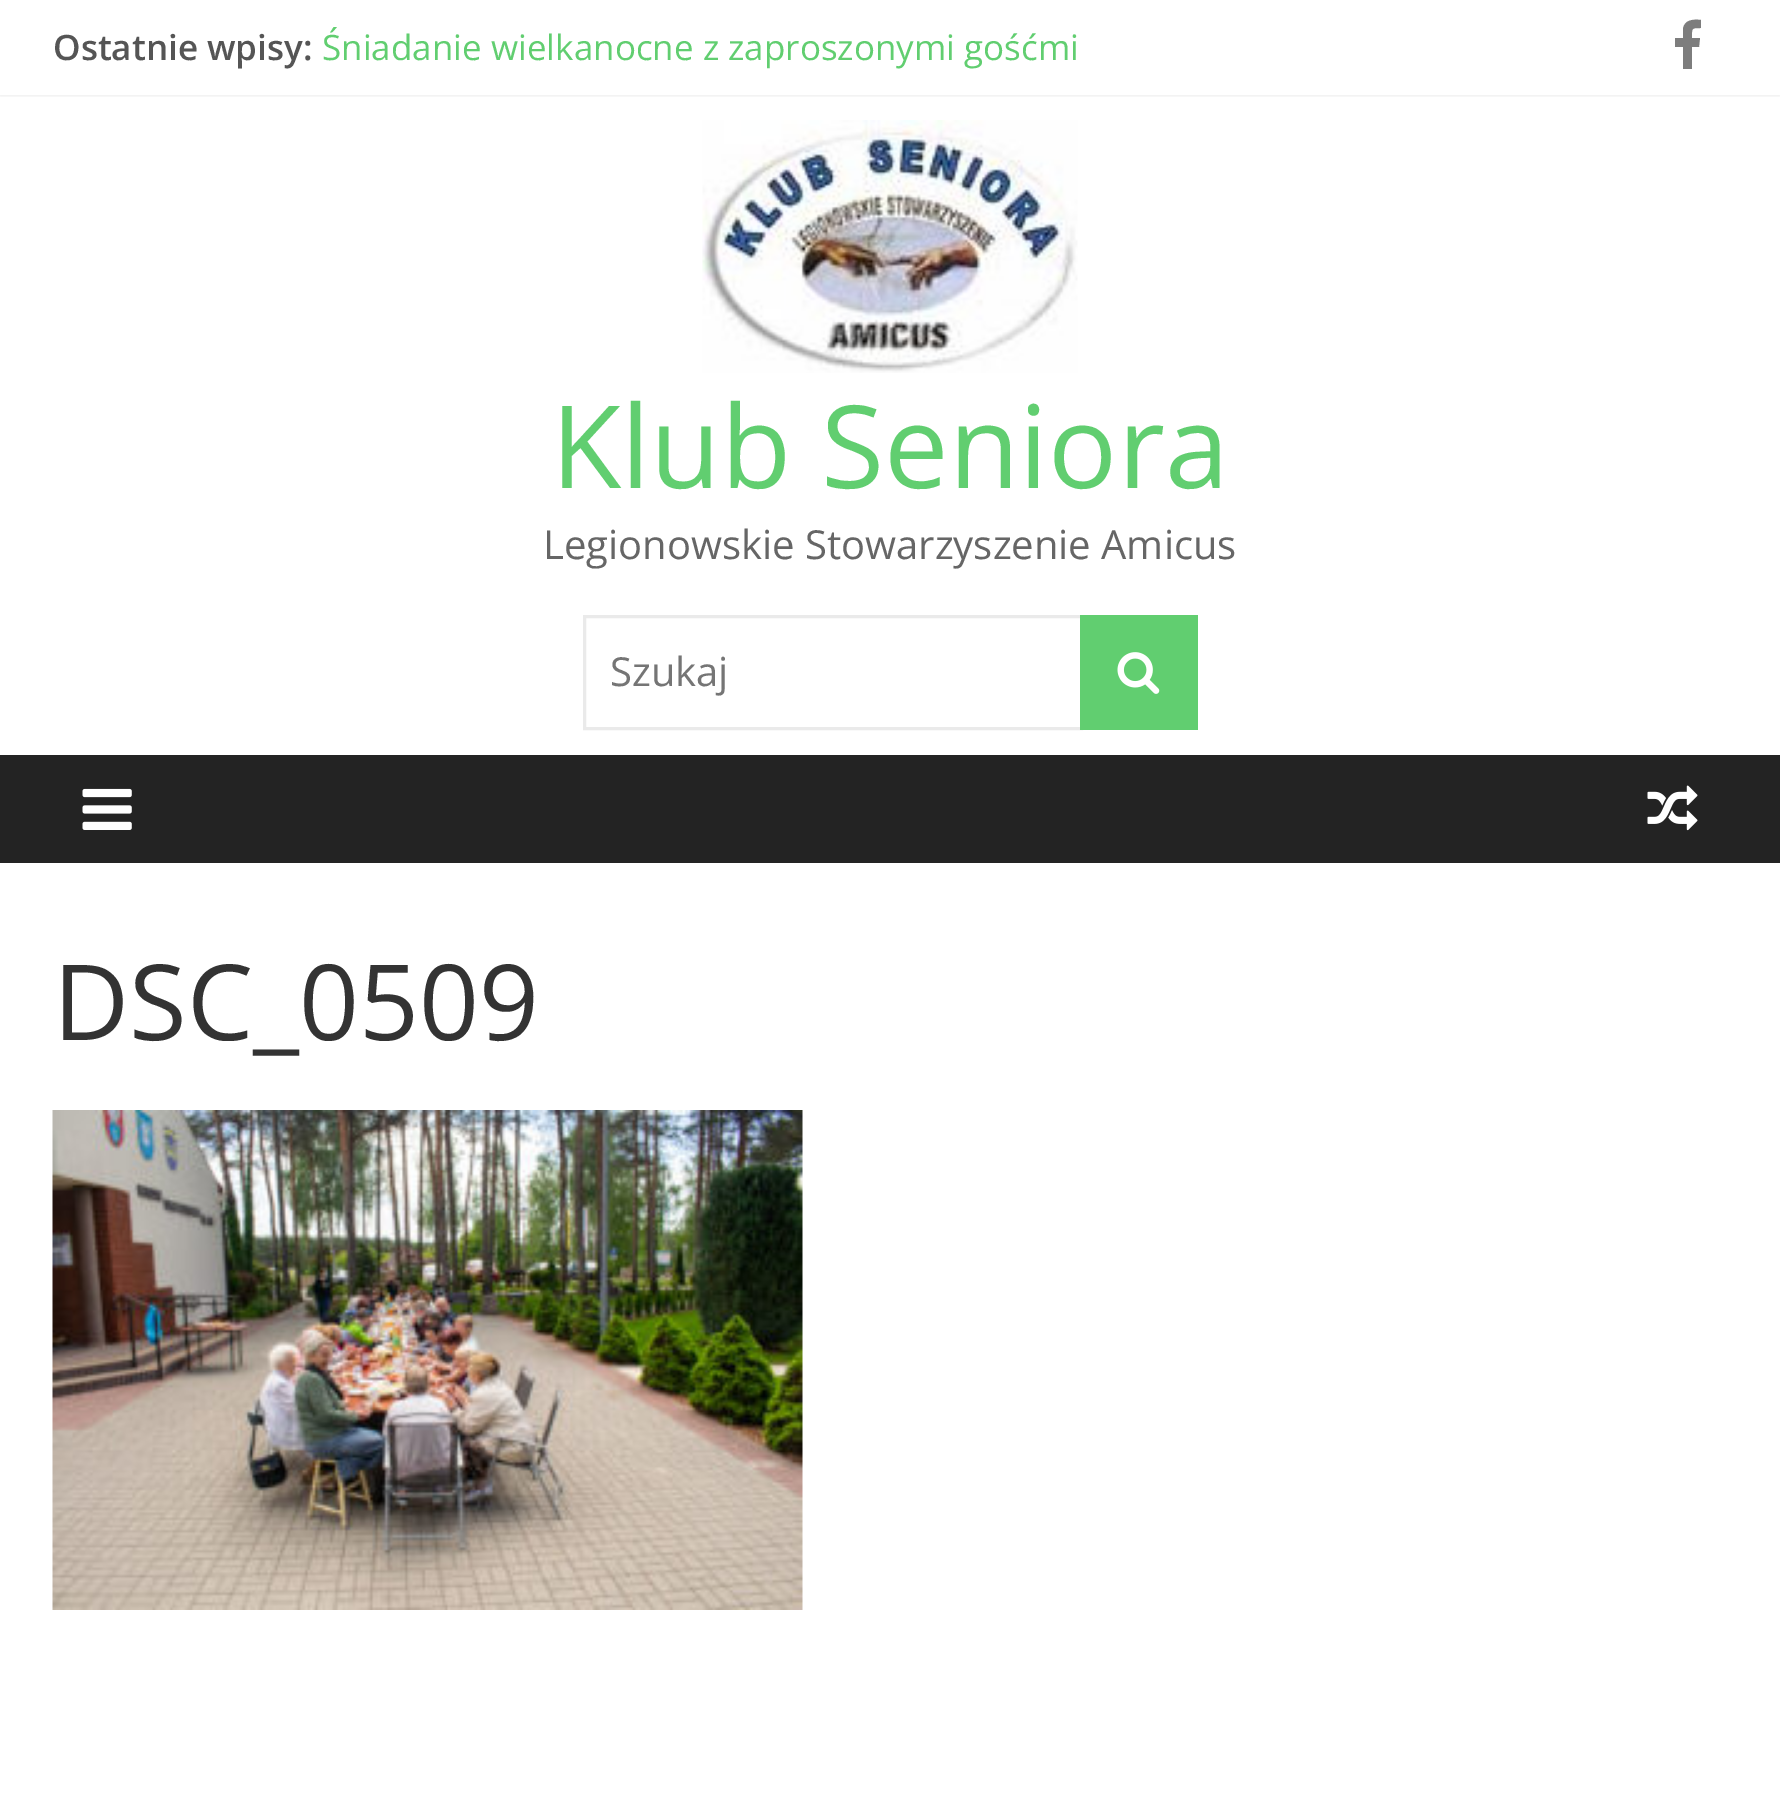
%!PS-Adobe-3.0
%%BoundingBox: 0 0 1780 1797
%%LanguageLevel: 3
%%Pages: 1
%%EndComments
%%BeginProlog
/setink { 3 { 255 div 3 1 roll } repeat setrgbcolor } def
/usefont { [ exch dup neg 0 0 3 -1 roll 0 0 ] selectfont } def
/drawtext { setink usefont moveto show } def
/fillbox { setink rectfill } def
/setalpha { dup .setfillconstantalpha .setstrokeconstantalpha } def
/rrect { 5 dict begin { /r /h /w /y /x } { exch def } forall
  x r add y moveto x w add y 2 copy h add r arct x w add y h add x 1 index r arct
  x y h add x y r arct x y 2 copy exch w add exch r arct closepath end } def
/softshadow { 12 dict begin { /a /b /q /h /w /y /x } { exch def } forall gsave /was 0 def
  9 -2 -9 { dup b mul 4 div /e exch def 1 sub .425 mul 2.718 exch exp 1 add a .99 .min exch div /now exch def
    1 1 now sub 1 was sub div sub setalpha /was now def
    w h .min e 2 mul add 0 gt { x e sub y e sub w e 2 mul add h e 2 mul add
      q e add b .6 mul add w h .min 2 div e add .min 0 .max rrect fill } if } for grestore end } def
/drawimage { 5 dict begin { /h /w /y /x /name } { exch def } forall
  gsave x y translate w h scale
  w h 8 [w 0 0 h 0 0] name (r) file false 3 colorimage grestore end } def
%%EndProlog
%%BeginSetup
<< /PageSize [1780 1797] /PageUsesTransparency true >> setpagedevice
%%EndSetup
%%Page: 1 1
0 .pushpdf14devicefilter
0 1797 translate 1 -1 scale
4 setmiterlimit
0 0 1780 1797 255 255 255 fillbox
gsave
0 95 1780 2 rectclip
0 0 0 setink
0 0 1780 95 0 2.5 0.1 softshadow
grestore
(Ostatnie wpisy:) 53 60 /OpenSans-SemiBold 35 85 85 85 drawtext
(Śniadanie wielkanocne z zaproszonymi gośćmi) 322 60 /OpenSans-Regular 35 97 206 112 drawtext
125 125 125 setink
1701 20 moveto 1701 28 lineto 1691 28 1692 28 1692 38 curveto 1700 38 lineto 1699 47 lineto 1692 47 lineto 1692 69 lineto 1683 69 lineto 1683 47 lineto 1675 47 lineto 1675 38 lineto 1683 38 lineto 1683 29 lineto 1684 20 1693 19 1701 20 curveto closepath fill
(assets/img1.rgb) 702 120 376 253 drawimage
(Klub Seniora) 551 488 /OpenSans-Regular 115 97 206 112 drawtext
(Legionowskie Stowarzyszenie Amicus) 543 559 /OpenSans-Regular 40 102 102 102 drawtext
234 234 234 setink
3 setlinewidth
584.5 616.5 497 112 rectstroke
(Szukaj) 610 686 /OpenSans-Regular 40 117 117 117 drawtext
1080 615 118 115 97 206 112 fillbox
(assets/img2.rgb) 1117 652 43 42 drawimage
0 755 1780 108 35 35 35 fillbox
(assets/img3.rgb) 82 788 50 42 drawimage
(assets/img4.rgb) 1647 785 51 46 drawimage
(DSC_0509) 53 1040 /OpenSans-Regular 105 51 51 51 drawtext
(assets/img5.rgb) 52 1110 751 500 drawimage
.poppdf14devicefilter showpage
%%EOF
